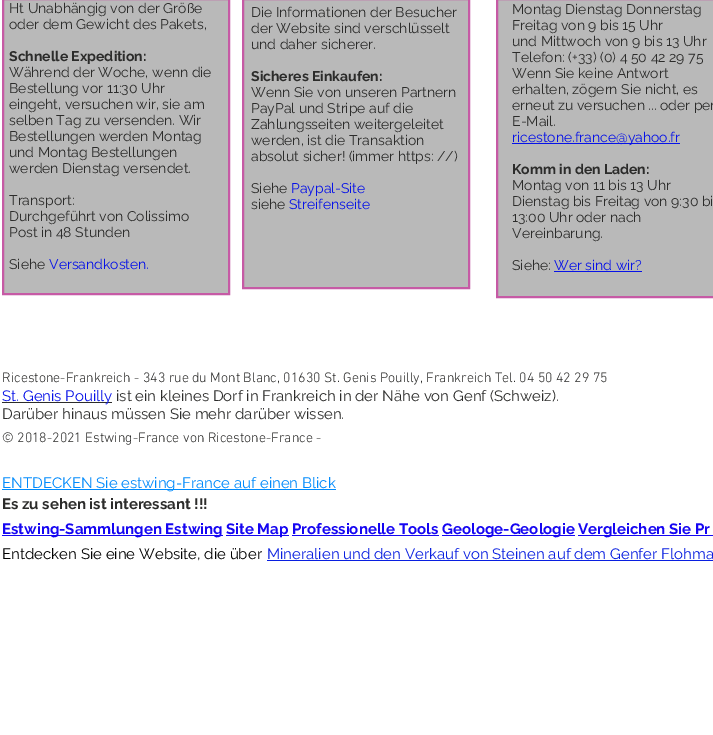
%!PS-Adobe-3.0
%%BoundingBox: 0 0 713 735
%%LanguageLevel: 3
%%Pages: 1
%%EndComments
%%BeginProlog
/setink { 3 { 255 div 3 1 roll } repeat setrgbcolor } def
/usefont { [ exch dup neg 0 0 3 -1 roll 0 0 ] selectfont } def
/drawtext { setink usefont moveto show } def
/fillbox { setink rectfill } def
%%EndProlog
%%BeginSetup
<< /PageSize [713 735] >> setpagedevice
%%EndSetup
%%Page: 1 1
0 735 translate 1 -1 scale
4 setmiterlimit
0 0 713 735 255 255 255 fillbox
185 185 185 setink
3 -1 moveto 229 -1 lineto 229 294 lineto 3 294 lineto closepath gsave fill grestore
198 90 165 setink
2 setlinewidth
stroke
(Ht Unabhängig von der Größe) 9 13 /Raleway-Regular 14 44 44 43 drawtext
(oder dem Gewicht des Pakets,) 9 29 /Raleway-Regular 14 44 44 43 drawtext
(Schnelle Expedition:) 9 61 /Raleway-Bold 14 44 44 43 drawtext
(Während der Woche, wenn die) 9 77 /Raleway-Regular 14 44 44 43 drawtext
(Bestellung vor 11:30 Uhr) 9 93 /Raleway-Regular 14 44 44 43 drawtext
(eingeht, versuchen wir, sie am) 9 109 /Raleway-Regular 14 44 44 43 drawtext
(selben Tag zu versenden. Wir) 9 125 /Raleway-Regular 14 44 44 43 drawtext
(Bestellungen werden Montag) 9 141 /Raleway-Regular 14 44 44 43 drawtext
(und Montag Bestellungen) 9 157 /Raleway-Regular 14 44 44 43 drawtext
(werden Dienstag versendet.) 9 173 /Raleway-Regular 14 44 44 43 drawtext
(Transport:) 9 205 /Raleway-Regular 14 44 44 43 drawtext
(Durchgeführt von Colissimo) 9 221 /Raleway-Regular 14 44 44 43 drawtext
(Post in 48 Stunden) 9 237 /Raleway-Regular 14 44 44 43 drawtext
(Siehe) 9 269 /Raleway-Regular 14 44 44 43 drawtext
(Versandkosten.) 49 269 /Raleway-Regular 14 7 18 232 drawtext
185 185 185 setink
497 -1 moveto 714 -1 lineto 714 297 lineto 497 297 lineto closepath gsave fill grestore
198 90 165 setink
stroke
185 185 185 setink
243 -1 moveto 469 -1 lineto 469 288 lineto 243 288 lineto closepath gsave fill grestore
198 90 165 setink
stroke
(Die Informationen der Besucher) 251 17 /Raleway-Regular 14 44 44 43 drawtext
(der Website sind verschlüsselt) 251 33 /Raleway-Regular 14 44 44 43 drawtext
(und daher sicherer.) 251 49 /Raleway-Regular 14 44 44 43 drawtext
(Sicheres Einkaufen:) 251 81 /Raleway-Bold 14 44 44 43 drawtext
(Wenn Sie von unseren Partnern) 251 97 /Raleway-Regular 14 44 44 43 drawtext
(PayPal und Stripe auf die) 251 113 /Raleway-Regular 14 44 44 43 drawtext
(Zahlungsseiten weitergeleitet) 251 129 /Raleway-Regular 14 44 44 43 drawtext
(werden, ist die Transaktion) 251 145 /Raleway-Regular 14 44 44 43 drawtext
(absolut sicher! \(immer https: //\)) 251 161 /Raleway-Regular 14 44 44 43 drawtext
(Siehe) 251 193 /Raleway-Regular 14 44 44 43 drawtext
(Paypal-Site) 291 193 /Raleway-Regular 14 7 18 232 drawtext
(siehe) 251 209 /Raleway-Regular 14 44 44 43 drawtext
(Streifenseite) 289 209 /Raleway-Regular 14 7 18 232 drawtext
(Montag Dienstag Donnerstag) 512 14 /Raleway-Regular 14 44 44 43 drawtext
(Freitag von 9 bis 15 Uhr) 512 30 /Raleway-Regular 14 44 44 43 drawtext
(und Mittwoch von 9 bis 13 Uhr) 512 46 /Raleway-Regular 14 44 44 43 drawtext
(Telefon: \(+33\) \(0\) 4 50 42 29 75) 512 62 /Raleway-Regular 14 44 44 43 drawtext
(Wenn Sie keine Antwort) 512 78 /Raleway-Regular 14 44 44 43 drawtext
(erhalten, zögern Sie nicht, es) 512 94 /Raleway-Regular 14 44 44 43 drawtext
(erneut zu versuchen ... oder per) 512 110 /Raleway-Regular 14 44 44 43 drawtext
(E-Mail.) 512 126 /Raleway-Regular 14 44 44 43 drawtext
512 143 168 1 7 18 232 fillbox
(ricestone.france@yahoo.fr) 512 142 /Raleway-Regular 14 7 18 232 drawtext
(Komm in den Laden:) 512 174 /Raleway-Bold 14 44 44 43 drawtext
(Montag von 11 bis 13 Uhr) 512 190 /Raleway-Regular 14 44 44 43 drawtext
(Dienstag bis Freitag von 9:30 bi) 512 206 /Raleway-Regular 14 44 44 43 drawtext
(13:00 Uhr oder nach) 512 222 /Raleway-Regular 14 44 44 43 drawtext
(Vereinbarung.) 512 238 /Raleway-Regular 14 44 44 43 drawtext
(Siehe:) 512 270 /Raleway-Regular 14 44 44 43 drawtext
(Wer sind wir?) 554 270 /Raleway-Regular 14 7 18 232 drawtext
554 271 88 1 7 18 232 fillbox
(Ricestone-Frankreich - 343 rue du Mont Blanc, 01630 St. Genis Pouilly, Frankreich Tel. 04 50 42 29 75) 2 382 /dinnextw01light-Light 14 44 44 43 drawtext
2 402 110 1 44 44 43 fillbox
(St. Genis Pouilly) 2 401 /Raleway-Regular 15 7 18 232 drawtext
(ist ein kleines Dorf in Frankreich in der Nähe von Genf \(Schweiz\).) 116 401 /Raleway-Regular 15 44 44 43 drawtext
(Darüber hinaus müssen Sie mehr darüber wissen.) 2 419 /Raleway-Regular 15 44 44 43 drawtext
(© 2018-2021 Estwing-France von Ricestone-France -) 2 442 /dinnextw01light-Light 14 44 44 43 drawtext
2 489 334 1 0 138 252 fillbox
(ENTDECKEN Sie estwing-France auf einen Blick) 2 488 /Raleway-Regular 15 0 138 252 drawtext
(Es zu sehen ist interessant !!!) 2 509 /Raleway-Bold 15 44 44 43 drawtext
2 535 221 1 21 5 242 fillbox
(Estwing-Sammlungen Estwing) 2 534 /Raleway-Bold 15 21 5 242 drawtext
226 535 63 1 21 5 242 fillbox
(Site Map Professionelle Tools) 226 534 /Raleway-Bold 15 21 5 242 drawtext
292 535 147 1 21 5 242 fillbox
442 535 133 1 21 5 242 fillbox
(Geologe-Geologie) 442 534 /Raleway-Bold 15 21 5 242 drawtext
578 535 135 1 21 5 242 fillbox
(Vergleichen Sie Pr) 578 534 /Raleway-Bold 15 21 5 242 drawtext
(Entdecken Sie eine Website, die über) 2 559 /Raleway-Regular 15 0 0 0 drawtext
(Mineralien und den Verkauf von Steinen auf dem Genfer Flohma) 267 559 /Raleway-Regular 15 9 31 224 drawtext
267 560 446 1 9 31 224 fillbox
showpage
%%EOF
